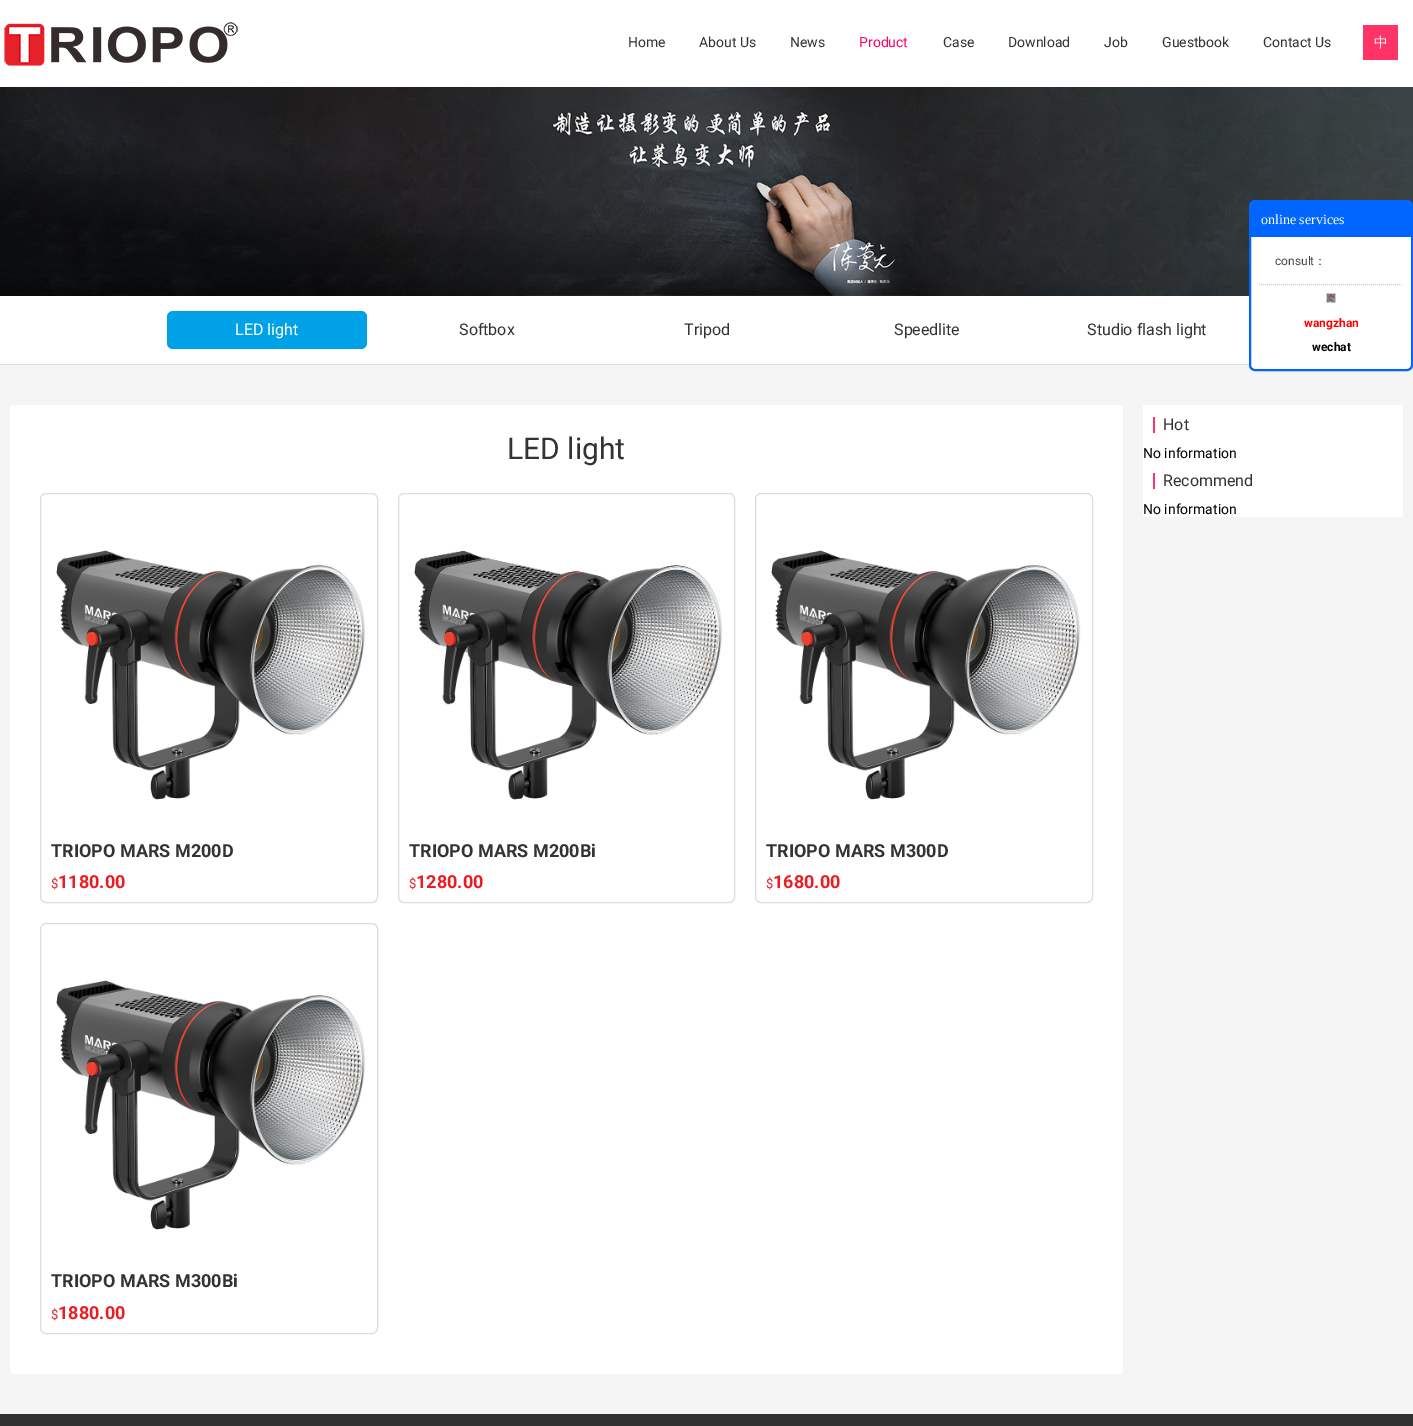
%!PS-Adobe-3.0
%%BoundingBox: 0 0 1413 1426
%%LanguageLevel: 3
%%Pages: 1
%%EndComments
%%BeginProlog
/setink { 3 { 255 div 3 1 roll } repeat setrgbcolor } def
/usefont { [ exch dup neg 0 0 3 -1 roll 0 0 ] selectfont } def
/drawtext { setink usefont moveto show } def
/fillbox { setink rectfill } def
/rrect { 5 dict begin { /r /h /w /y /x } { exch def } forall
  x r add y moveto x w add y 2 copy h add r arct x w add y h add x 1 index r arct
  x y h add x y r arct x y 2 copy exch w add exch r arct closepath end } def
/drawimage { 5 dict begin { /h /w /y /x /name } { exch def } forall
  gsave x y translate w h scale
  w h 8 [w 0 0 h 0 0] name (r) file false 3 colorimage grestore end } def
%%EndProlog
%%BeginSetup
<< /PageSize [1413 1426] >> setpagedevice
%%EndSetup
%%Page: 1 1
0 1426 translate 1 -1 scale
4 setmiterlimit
0 0 1413 1426 245 245 245 fillbox
0 0 1413 87 255 255 255 fillbox
(assets/img1.rgb) 4 22 234 44 drawimage
(Home) 628 47 /Roboto-Regular 14 51 51 51 drawtext
(About Us) 699 47 /Roboto-Regular 14 51 51 51 drawtext
(News) 790 47 /Roboto-Regular 14 51 51 51 drawtext
(Product) 859 47 /Roboto-Regular 14 255 0 102 drawtext
(Case) 943 47 /Roboto-Regular 14 51 51 51 drawtext
(Download) 1008 47 /Roboto-Regular 14 51 51 51 drawtext
(Job) 1104 47 /Roboto-Regular 14 51 51 51 drawtext
(Guestbook) 1162 47 /Roboto-Regular 14 51 51 51 drawtext
(Contact Us) 1263 47 /Roboto-Regular 14 51 51 51 drawtext
1363 25 35 35 255 51 102 fillbox
(中) 1374 47 /WenQuanYiZenHei-Medium 14 255 255 255 drawtext
(assets/img2.rgb) 0 87 1413 209 drawimage
0 296 1249 68 255 255 255 fillbox
0 364 1249 1 221 221 221 fillbox
0 161 231 setink
167 311 200 38 6 rrect fill
(LED light) 235 335 /Roboto-Regular 16 255 255 255 drawtext
(Softbox) 459 335 /Roboto-Regular 16 51 51 51 drawtext
(Tripod) 684 335 /Roboto-Regular 16 51 51 51 drawtext
(Speedlite) 894 335 /Roboto-Regular 16 51 51 51 drawtext
(Studio flash light) 1087 335 /Roboto-Regular 16 51 51 51 drawtext
255 255 255 setink
1250 201 162 169 5 rrect gsave fill grestore
0 102 255 setink
2 setlinewidth
stroke
1255 202 moveto 1407 202 lineto 1409 202 1411 204 1411 206 curveto 1411 237 lineto 1251 237 lineto 1251 206 lineto 1251 204 1253 202 1255 202 curveto closepath fill
(online services) 1261 224 /LiberationSerif-Regular 14 255 255 255 drawtext
(consult) 1275 265 /Roboto-Regular 12 68 68 68 drawtext
(：) 1314 265 /WenQuanYiZenHei-Medium 12 68 68 68 drawtext
204 204 204 setink
1 setlinewidth
[1 1] 0 setdash
1259 284.5 moveto 1403 284.5 lineto stroke
(assets/img3.rgb) 1326 293 10 10 drawimage
(wangzhan) 1304 327 /Roboto-Bold 12 255 0 0 drawtext
(wechat) 1312 351 /Roboto-Bold 12 0 0 0 drawtext
255 255 255 setink
10 405 1113 969 4 rrect fill
(LED light) 507 459 /Roboto-Regular 30 51 51 51 drawtext
221 221 221 setink
[] 0 setdash
40.5 493.5 337 409 5.5 rrect stroke
(assets/img4.rgb) 56 550 310 250 drawimage
(TRIOPO MARS M200D) 51 857 /Roboto-Bold 18 51 51 51 drawtext
($) 51 888 /Roboto-Regular 13 236 28 35 drawtext
(1180.00) 58 888 /Roboto-Bold 18 236 28 35 drawtext
221 221 221 setink
398.5 493.5 336 409 5.5 rrect stroke
(assets/img5.rgb) 414 550 309 250 drawimage
(TRIOPO MARS M200Bi) 409 857 /Roboto-Bold 18 51 51 51 drawtext
($) 409 888 /Roboto-Regular 13 236 28 35 drawtext
(1280.00) 416 888 /Roboto-Bold 18 236 28 35 drawtext
221 221 221 setink
755.5 493.5 337 409 5.5 rrect stroke
(assets/img4.rgb) 771 550 310 250 drawimage
(TRIOPO MARS M300D) 766 857 /Roboto-Bold 18 51 51 51 drawtext
($) 766 888 /Roboto-Regular 13 236 28 35 drawtext
(1680.00) 773 888 /Roboto-Bold 18 236 28 35 drawtext
221 221 221 setink
40.5 923.5 337 410 5.5 rrect stroke
(assets/img4.rgb) 56 980 310 250 drawimage
(TRIOPO MARS M300Bi) 51 1287 /Roboto-Bold 18 51 51 51 drawtext
($) 51 1319 /Roboto-Regular 13 236 28 35 drawtext
(1880.00) 58 1319 /Roboto-Bold 18 236 28 35 drawtext
1143 405 260 112 255 255 255 fillbox
1153 417 2 16 255 51 102 fillbox
(Hot) 1163 430 /Roboto-Regular 16 51 51 51 drawtext
(No information) 1143 458 /Roboto-Regular 14 0 0 0 drawtext
1153 473 2 16 255 51 102 fillbox
(Recommend) 1163 486 /Roboto-Regular 16 51 51 51 drawtext
(No information) 1143 514 /Roboto-Regular 14 0 0 0 drawtext
0 1414 1413 12 48 48 48 fillbox
showpage
%%EOF
